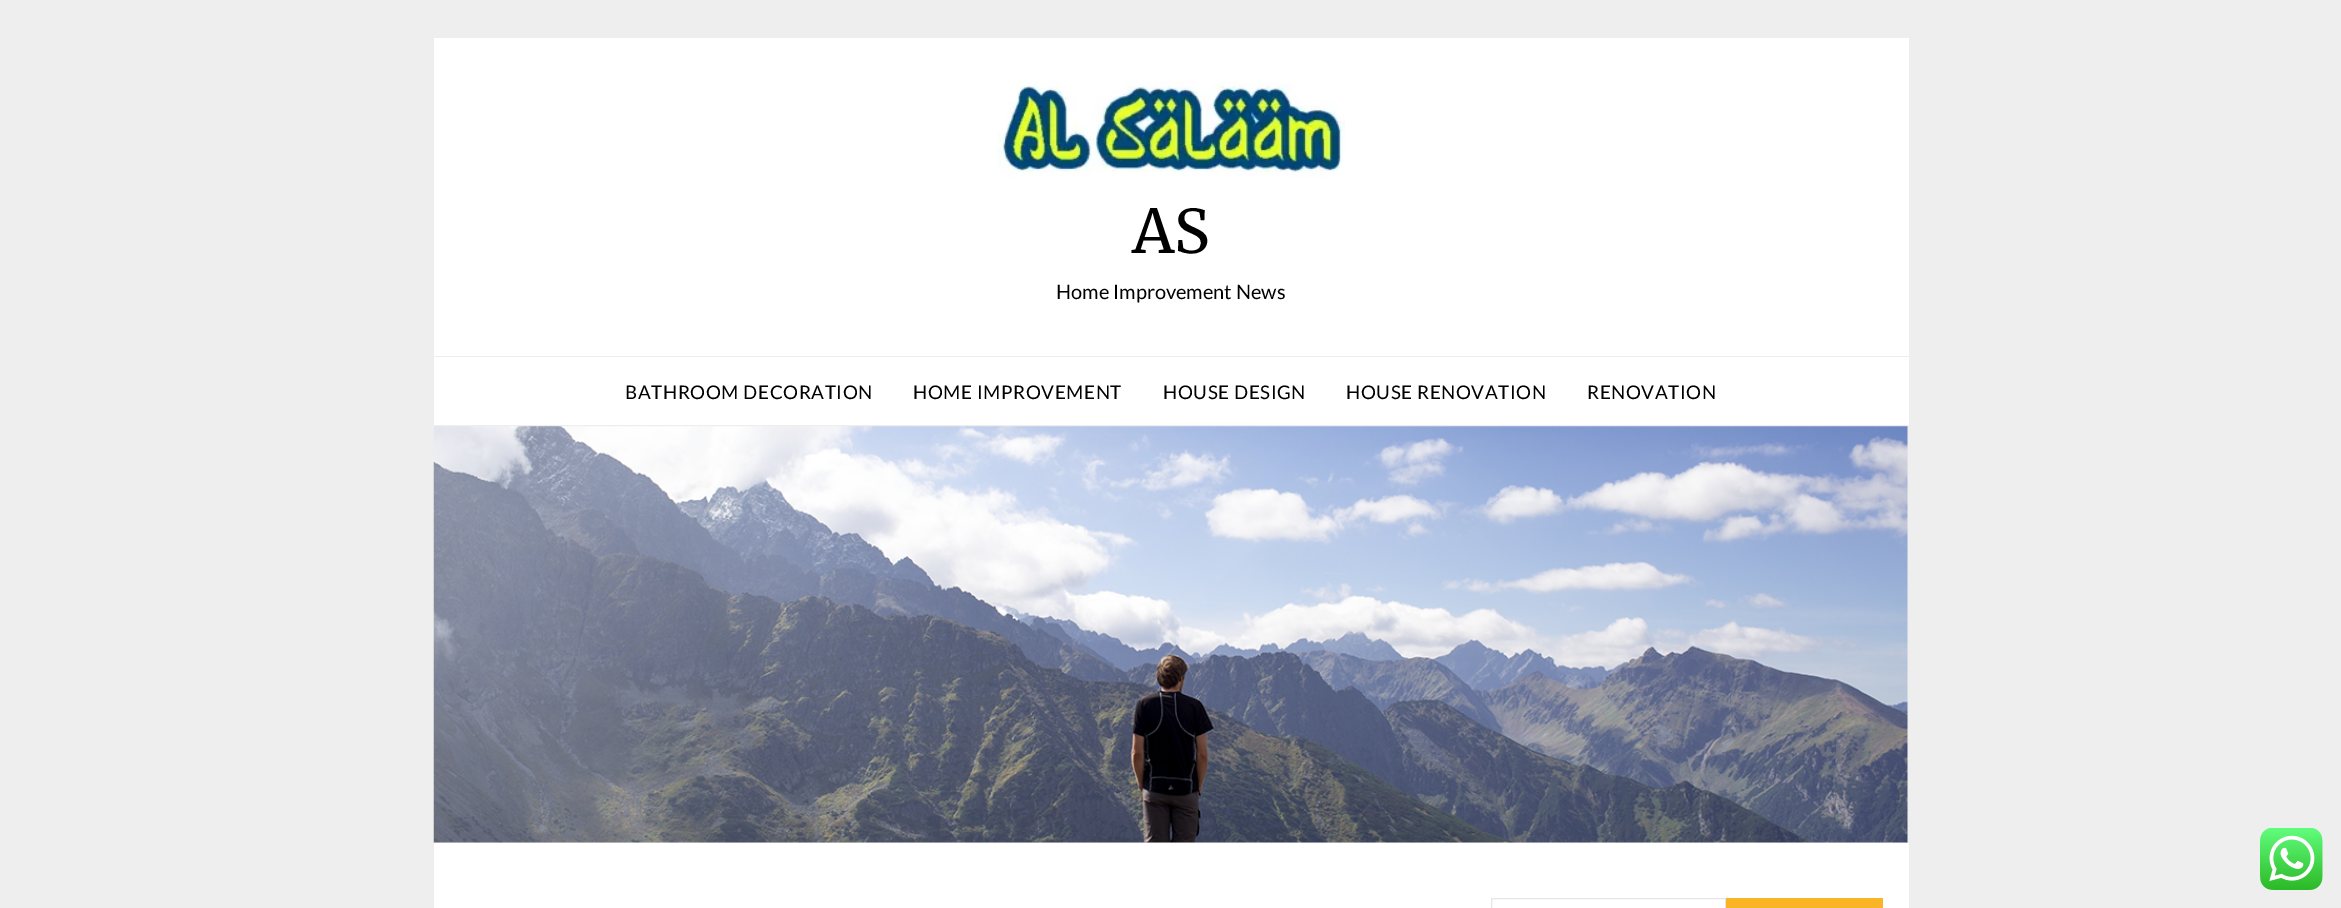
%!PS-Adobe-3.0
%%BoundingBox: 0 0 2341 908
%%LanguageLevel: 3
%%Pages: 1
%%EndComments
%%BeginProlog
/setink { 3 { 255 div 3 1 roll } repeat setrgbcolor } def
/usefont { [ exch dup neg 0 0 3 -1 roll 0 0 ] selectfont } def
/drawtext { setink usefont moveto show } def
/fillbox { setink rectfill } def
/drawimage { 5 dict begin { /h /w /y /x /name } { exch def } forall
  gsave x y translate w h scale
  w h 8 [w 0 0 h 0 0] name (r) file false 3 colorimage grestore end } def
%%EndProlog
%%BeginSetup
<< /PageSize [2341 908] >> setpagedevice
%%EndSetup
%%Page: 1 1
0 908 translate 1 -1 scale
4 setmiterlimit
0 0 2341 908 238 238 238 fillbox
434 38 1475 318 255 255 255 fillbox
(assets/img1.rgb) 997 81 348 97 drawimage
(AS) 1132 253 /Merriweather-Light 60 0 0 0 drawtext
(Home Improvement News) 1056 299 /Lato-Regular 20 0 0 0 drawtext
434 357 1475 68 255 255 255 fillbox
/Lato-Regular 18.75 usefont
0 0 0 setink
625 399 moveto 0.6 0 (BATHROOM DECORATION) ashow
913 399 moveto 0.6 0 (HOME IMPROVEMENT) ashow
1163 399 moveto 0.6 0 (HOUSE DESIGN) ashow
1346 399 moveto 0.6 0 (HOUSE RENOVATION) ashow
1587 399 moveto 0.6 0 (RENOVATION) ashow
(assets/img2.rgb) 433 426 1475 417 drawimage
434 843 1475 65 255 255 255 fillbox
229 230 233 setink
1491.5 898.5 234 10 rectstroke
1726 898 157 10 250 181 38 fillbox
(assets/img3.rgb) 2260 828 63 62 drawimage
showpage
%%EOF
